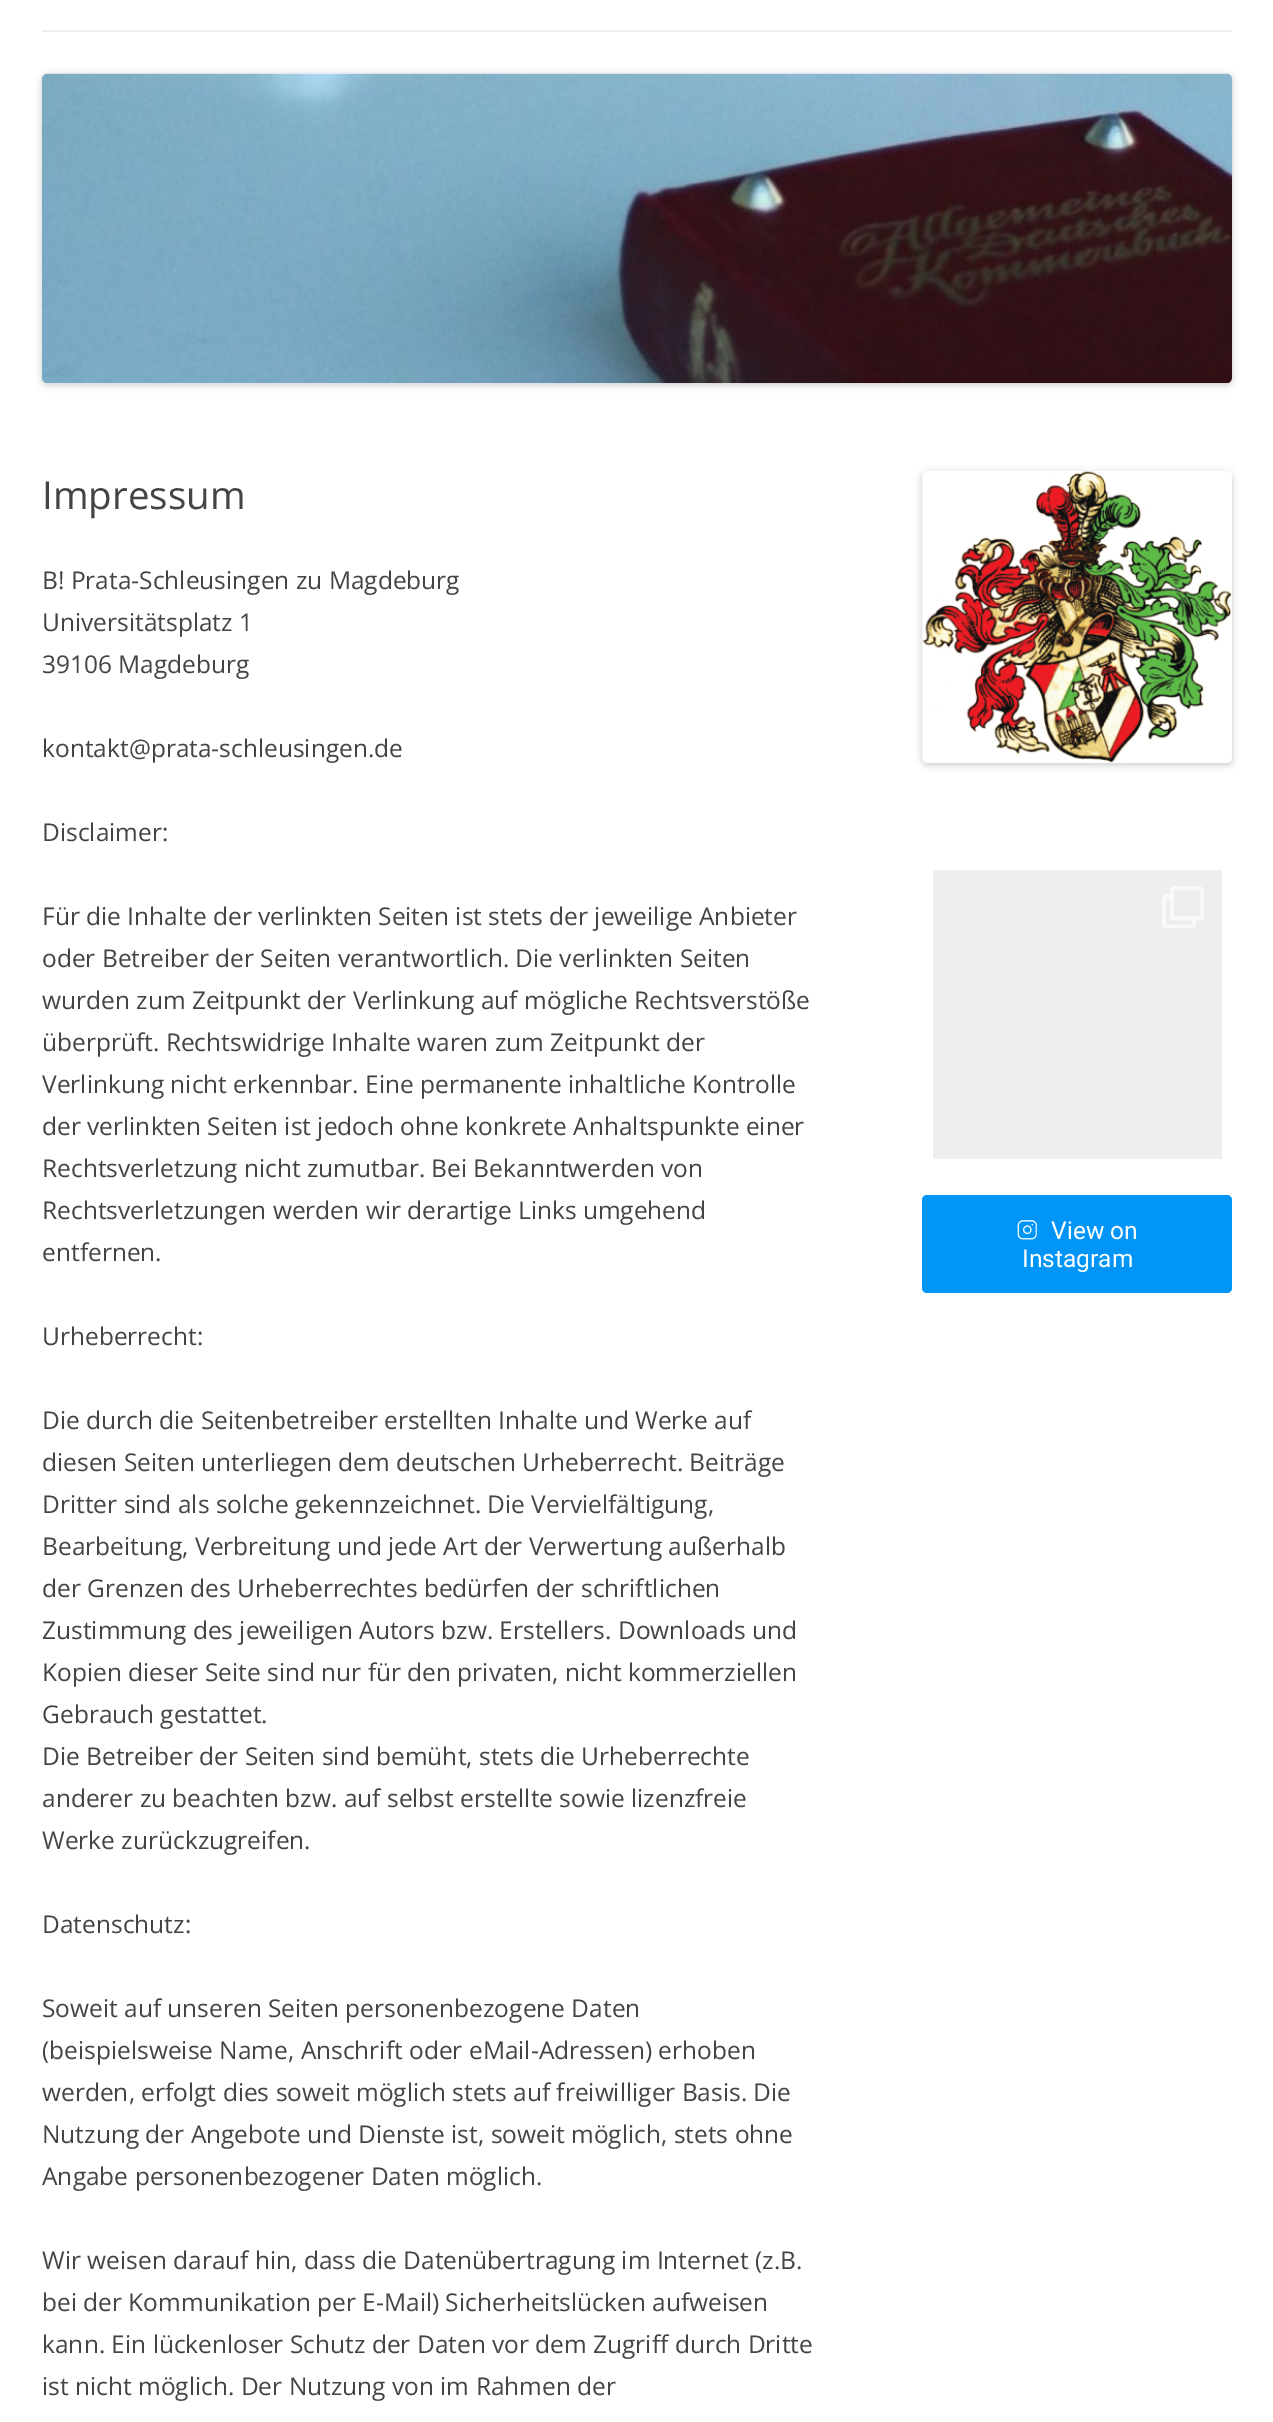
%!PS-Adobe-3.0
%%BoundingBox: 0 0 1273 2422
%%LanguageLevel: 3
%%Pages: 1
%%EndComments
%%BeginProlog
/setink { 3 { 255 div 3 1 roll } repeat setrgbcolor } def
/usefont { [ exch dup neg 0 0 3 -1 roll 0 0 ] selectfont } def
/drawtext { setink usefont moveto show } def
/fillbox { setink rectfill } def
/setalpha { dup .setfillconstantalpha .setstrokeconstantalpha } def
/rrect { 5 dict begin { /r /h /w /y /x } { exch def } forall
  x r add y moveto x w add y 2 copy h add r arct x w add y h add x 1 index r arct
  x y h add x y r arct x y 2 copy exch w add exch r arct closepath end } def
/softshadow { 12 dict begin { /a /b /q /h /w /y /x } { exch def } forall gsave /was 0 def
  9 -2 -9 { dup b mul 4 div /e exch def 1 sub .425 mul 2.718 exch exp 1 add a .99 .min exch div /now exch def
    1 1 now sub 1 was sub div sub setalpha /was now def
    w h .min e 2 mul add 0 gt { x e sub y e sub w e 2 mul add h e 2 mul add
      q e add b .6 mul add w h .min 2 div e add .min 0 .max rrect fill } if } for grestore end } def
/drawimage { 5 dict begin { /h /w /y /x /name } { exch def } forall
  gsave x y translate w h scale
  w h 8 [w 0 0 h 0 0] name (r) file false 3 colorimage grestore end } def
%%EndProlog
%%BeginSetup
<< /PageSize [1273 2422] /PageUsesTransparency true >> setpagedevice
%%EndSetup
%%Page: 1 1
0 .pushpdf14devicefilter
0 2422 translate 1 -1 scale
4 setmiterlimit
0 0 1273 2422 255 255 255 fillbox
42 30 1190 2 237 237 237 fillbox
0 0 0 setink
42 75 1190 310 5 3.5 0.2 softshadow
(assets/img1.rgb) 42 73 1190 311 drawimage
(Impressum) 42 509 /OpenSans-Regular 38.5 68 68 68 drawtext
(B! Prata-Schleusingen zu Magdeburg) 42 589 /OpenSans-Regular 24.5 68 68 68 drawtext
(Universitätsplatz 1) 42 631 /OpenSans-Regular 24.5 68 68 68 drawtext
(39106 Magdeburg) 42 673 /OpenSans-Regular 24.5 68 68 68 drawtext
(kontakt@prata-schleusingen.de) 42 757 /OpenSans-Regular 24.5 68 68 68 drawtext
(Disclaimer:) 42 841 /OpenSans-Regular 24.5 68 68 68 drawtext
(Für die Inhalte der verlinkten Seiten ist stets der jeweilige Anbieter) 42 925 /OpenSans-Regular 24.5 68 68 68 drawtext
(oder Betreiber der Seiten verantwortlich. Die verlinkten Seiten) 42 967 /OpenSans-Regular 24.5 68 68 68 drawtext
(wurden zum Zeitpunkt der Verlinkung auf mögliche Rechtsverstöße) 42 1009 /OpenSans-Regular 24.5 68 68 68 drawtext
(überprüft. Rechtswidrige Inhalte waren zum Zeitpunkt der) 42 1051 /OpenSans-Regular 24.5 68 68 68 drawtext
(Verlinkung nicht erkennbar. Eine permanente inhaltliche Kontrolle) 42 1093 /OpenSans-Regular 24.5 68 68 68 drawtext
(der verlinkten Seiten ist jedoch ohne konkrete Anhaltspunkte einer) 42 1135 /OpenSans-Regular 24.5 68 68 68 drawtext
(Rechtsverletzung nicht zumutbar. Bei Bekanntwerden von) 42 1177 /OpenSans-Regular 24.5 68 68 68 drawtext
(Rechtsverletzungen werden wir derartige Links umgehend) 42 1219 /OpenSans-Regular 24.5 68 68 68 drawtext
(entfernen.) 42 1261 /OpenSans-Regular 24.5 68 68 68 drawtext
(Urheberrecht:) 42 1345 /OpenSans-Regular 24.5 68 68 68 drawtext
(Die durch die Seitenbetreiber erstellten Inhalte und Werke auf) 42 1429 /OpenSans-Regular 24.5 68 68 68 drawtext
(diesen Seiten unterliegen dem deutschen Urheberrecht. Beiträge) 42 1471 /OpenSans-Regular 24.5 68 68 68 drawtext
(Dritter sind als solche gekennzeichnet. Die Vervielfältigung,) 42 1513 /OpenSans-Regular 24.5 68 68 68 drawtext
(Bearbeitung, Verbreitung und jede Art der Verwertung außerhalb) 42 1555 /OpenSans-Regular 24.5 68 68 68 drawtext
(der Grenzen des Urheberrechtes bedürfen der schriftlichen) 42 1597 /OpenSans-Regular 24.5 68 68 68 drawtext
(Zustimmung des jeweiligen Autors bzw. Erstellers. Downloads und) 42 1639 /OpenSans-Regular 24.5 68 68 68 drawtext
(Kopien dieser Seite sind nur für den privaten, nicht kommerziellen) 42 1681 /OpenSans-Regular 24.5 68 68 68 drawtext
(Gebrauch gestattet.) 42 1723 /OpenSans-Regular 24.5 68 68 68 drawtext
(Die Betreiber der Seiten sind bemüht, stets die Urheberrechte) 42 1765 /OpenSans-Regular 24.5 68 68 68 drawtext
(anderer zu beachten bzw. auf selbst erstellte sowie lizenzfreie) 42 1807 /OpenSans-Regular 24.5 68 68 68 drawtext
(Werke zurückzugreifen.) 42 1849 /OpenSans-Regular 24.5 68 68 68 drawtext
(Datenschutz:) 42 1933 /OpenSans-Regular 24.5 68 68 68 drawtext
(Soweit auf unseren Seiten personenbezogene Daten) 42 2017 /OpenSans-Regular 24.5 68 68 68 drawtext
(\(beispielsweise Name, Anschrift oder eMail-Adressen\) erhoben) 42 2059 /OpenSans-Regular 24.5 68 68 68 drawtext
(werden, erfolgt dies soweit möglich stets auf freiwilliger Basis. Die) 42 2101 /OpenSans-Regular 24.5 68 68 68 drawtext
(Nutzung der Angebote und Dienste ist, soweit möglich, stets ohne) 42 2143 /OpenSans-Regular 24.5 68 68 68 drawtext
(Angabe personenbezogener Daten möglich.) 42 2185 /OpenSans-Regular 24.5 68 68 68 drawtext
(Wir weisen darauf hin, dass die Datenübertragung im Internet \(z.B.) 42 2269 /OpenSans-Regular 24.5 68 68 68 drawtext
(bei der Kommunikation per E-Mail\) Sicherheitslücken aufweisen) 42 2311 /OpenSans-Regular 24.5 68 68 68 drawtext
(kann. Ein lückenloser Schutz der Daten vor dem Zugriff durch Dritte) 42 2353 /OpenSans-Regular 24.5 68 68 68 drawtext
(ist nicht möglich. Der Nutzung von im Rahmen der) 42 2395 /OpenSans-Regular 24.5 68 68 68 drawtext
gsave
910 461 moveto 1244 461 lineto 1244 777 lineto 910 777 lineto closepath 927 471 moveto 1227 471 lineto 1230 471 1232 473 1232 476 curveto 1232 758 lineto 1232 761 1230 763 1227 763 curveto 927 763 lineto 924 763 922 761 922 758 curveto 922 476 lineto 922 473 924 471 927 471 curveto closepath eoclip newpath
0 0 0 setink
922 473 310 292 5 3.5 0.2 softshadow
grestore
(assets/img2.rgb) 922 471 310 292 drawimage
933 870 289 289 238 238 238 fillbox
(assets/img3.rgb) 1162 886 42 43 drawimage
0 149 246 setink
922 1195 310 98 5 rrect fill
(assets/img4.rgb) 1017 1220 20 20 drawimage
(View on) 1051 1239 /Roboto-Regular 24.5 255 255 255 drawtext
(Instagram) 1022 1267 /Roboto-Regular 24.5 255 255 255 drawtext
.poppdf14devicefilter showpage
%%EOF
